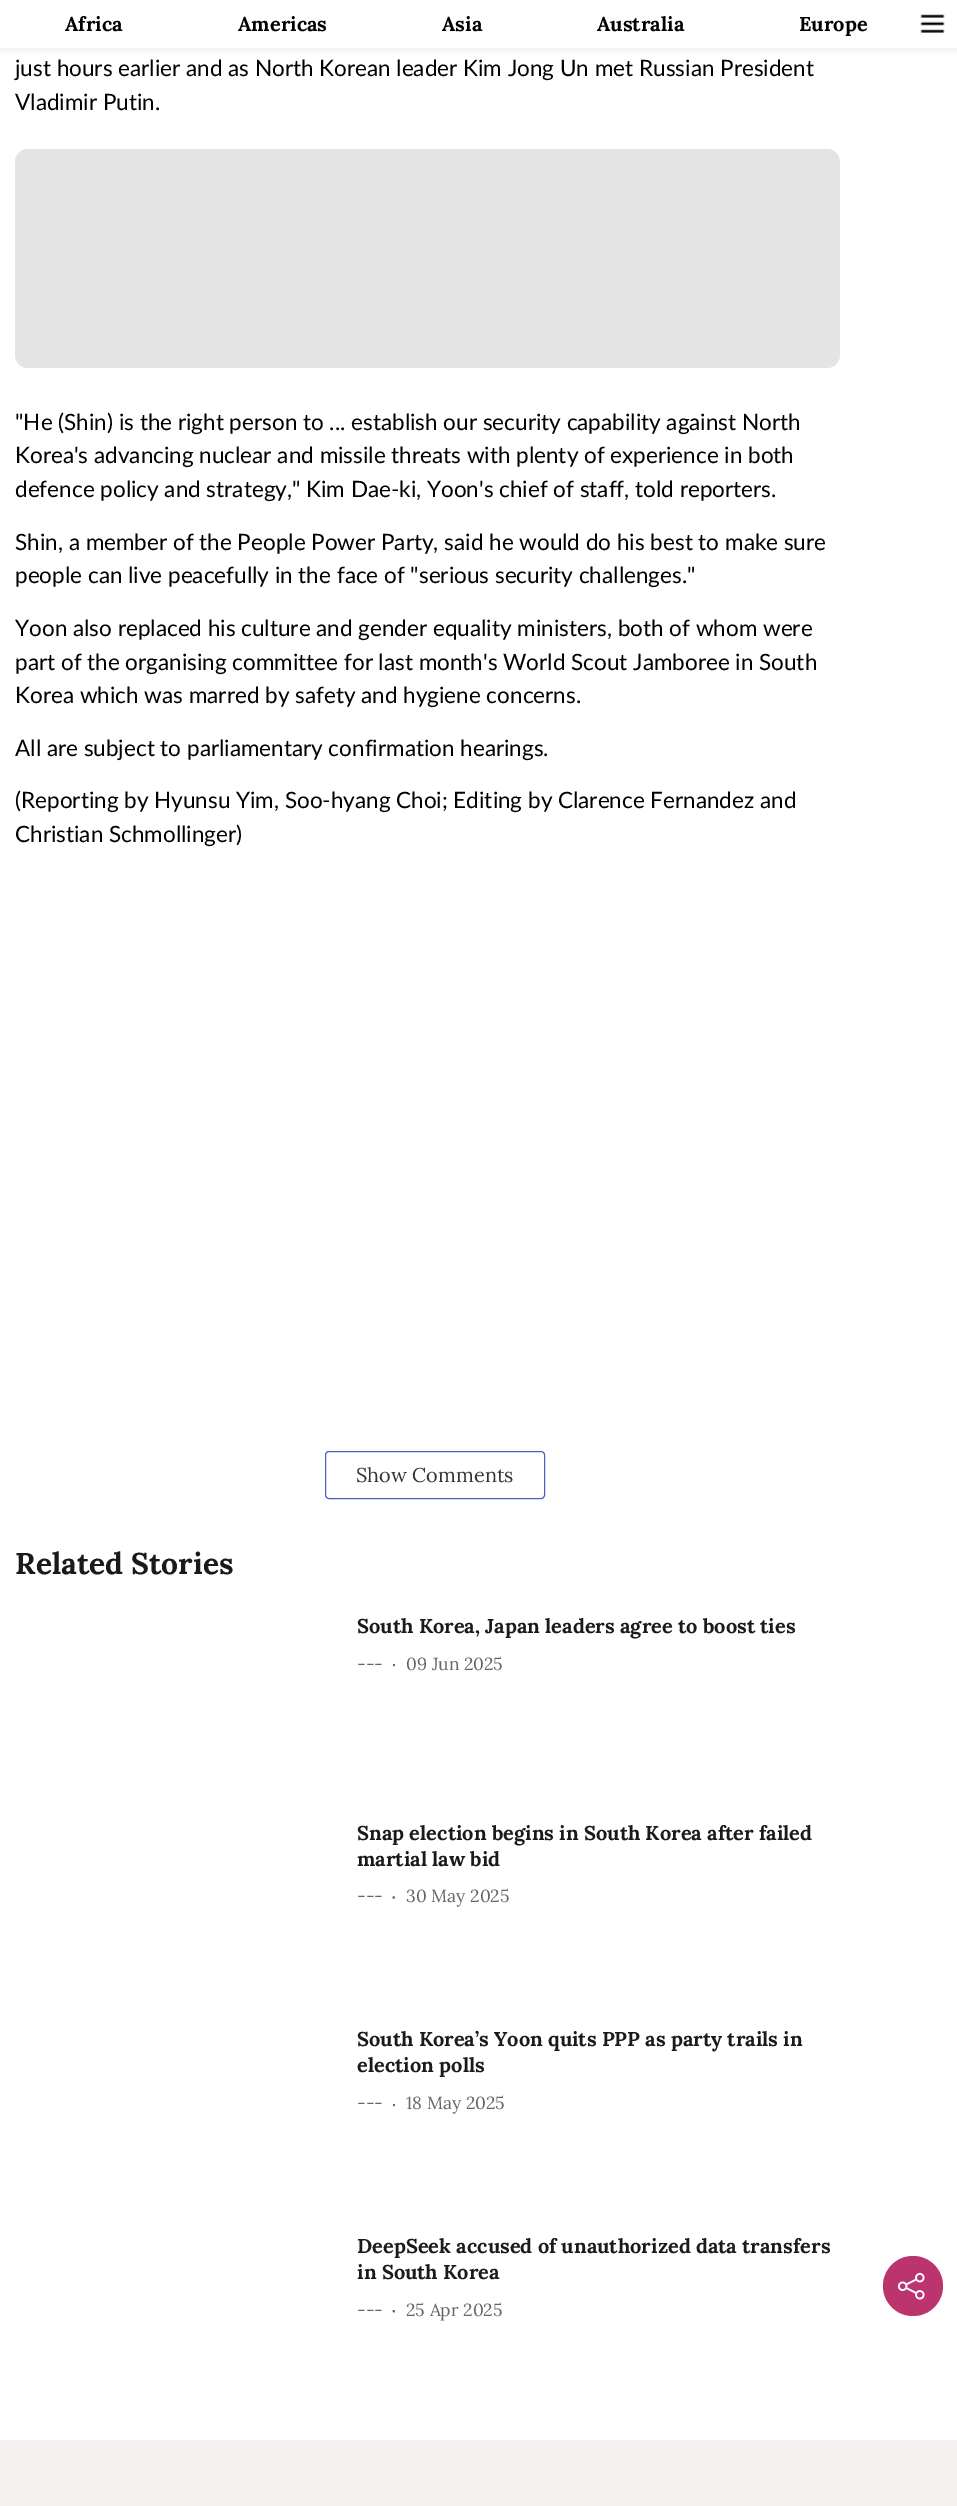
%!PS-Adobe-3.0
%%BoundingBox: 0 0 957 2506
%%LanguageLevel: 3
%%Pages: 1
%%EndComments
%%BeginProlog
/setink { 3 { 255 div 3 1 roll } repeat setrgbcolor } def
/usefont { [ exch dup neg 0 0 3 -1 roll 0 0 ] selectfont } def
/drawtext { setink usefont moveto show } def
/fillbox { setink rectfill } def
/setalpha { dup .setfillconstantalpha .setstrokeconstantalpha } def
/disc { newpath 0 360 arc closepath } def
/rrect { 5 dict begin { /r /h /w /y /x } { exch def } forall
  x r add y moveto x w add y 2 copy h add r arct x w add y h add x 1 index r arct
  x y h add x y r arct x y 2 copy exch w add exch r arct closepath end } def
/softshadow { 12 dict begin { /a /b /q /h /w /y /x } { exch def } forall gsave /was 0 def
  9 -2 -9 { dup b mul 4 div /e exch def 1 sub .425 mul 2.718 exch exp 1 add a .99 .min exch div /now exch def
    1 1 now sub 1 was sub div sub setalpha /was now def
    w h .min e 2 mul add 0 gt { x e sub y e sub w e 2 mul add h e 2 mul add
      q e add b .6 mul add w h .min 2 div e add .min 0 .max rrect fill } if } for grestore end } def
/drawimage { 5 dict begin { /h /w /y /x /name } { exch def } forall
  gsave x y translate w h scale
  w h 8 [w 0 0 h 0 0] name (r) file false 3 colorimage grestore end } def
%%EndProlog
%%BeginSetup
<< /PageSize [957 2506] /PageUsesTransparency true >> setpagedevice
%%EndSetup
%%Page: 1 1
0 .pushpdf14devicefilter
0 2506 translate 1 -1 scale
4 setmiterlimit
0 0 957 2506 255 255 255 fillbox
0 0 0 setink
0 1 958 48 0 4 0.1 softshadow
0 0 957 48 255 255 255 fillbox
(Africa) 65 31 /Lora-Bold 20 0 0 0 drawtext
(Americas) 238 31 /Lora-Bold 20 0 0 0 drawtext
(Asia) 442 31 /Lora-Bold 20 0 0 0 drawtext
(Australia) 597 31 /Lora-Bold 20 0 0 0 drawtext
(Europe) 799 31 /Lora-Bold 20 0 0 0 drawtext
(assets/img1.rgb) 920 14 25 19 drawimage
(just hours earlier and as North Korean leader Kim Jong Un met Russian President) 15 76 /Lato-Regular 22.5 0 0 0 drawtext
(Vladimir Putin.) 15 110 /Lato-Regular 22.5 0 0 0 drawtext
228 228 228 setink
15 149 825 219 13 rrect fill
("He \(Shin\) is the right person to ... establish our security capability against North) 15 430 /Lato-Regular 22.5 0 0 0 drawtext
(Korea's advancing nuclear and missile threats with plenty of experience in both) 15 463 /Lato-Regular 22.5 0 0 0 drawtext
(defence policy and strategy," Kim Dae-ki, Yoon's chief of staff, told reporters.) 15 497 /Lato-Regular 22.5 0 0 0 drawtext
(Shin, a member of the People Power Party, said he would do his best to make sure) 15 550 /Lato-Regular 22.5 0 0 0 drawtext
(people can live peacefully in the face of "serious security challenges.") 15 583 /Lato-Regular 22.5 0 0 0 drawtext
(Yoon also replaced his culture and gender equality ministers, both of whom were) 15 636 /Lato-Regular 22.5 0 0 0 drawtext
(part of the organising committee for last month's World Scout Jamboree in South) 15 670 /Lato-Regular 22.5 0 0 0 drawtext
(Korea which was marred by safety and hygiene concerns.) 15 703 /Lato-Regular 22.5 0 0 0 drawtext
(All are subject to parliamentary confirmation hearings.) 15 756 /Lato-Regular 22.5 0 0 0 drawtext
(\(Reporting by Hyunsu Yim, Soo-hyang Choi; Editing by Clarence Fernandez and) 15 808 /Lato-Regular 22.5 0 0 0 drawtext
(Christian Schmollinger\)) 15 842 /Lato-Regular 22.5 0 0 0 drawtext
72 96 188 setink
325.5 1451.5 219 47 3.5 rrect stroke
(Show Comments) 356 1482 /Lora-Regular 20 51 51 51 drawtext
188 52 109 setink
913 2286 30 disc fill
(assets/img2.rgb) 897 2272 28 28 drawimage
(Related Stories) 15 1574 /Lora-Bold 30 26 26 26 drawtext
(South Korea, Japan leaders agree to boost ties) 357 1633 /Lora-Bold 20 26 26 26 drawtext
(---) 357 1670 /Lora-Regular 17.5 102 102 102 drawtext
gsave
393 1664 4 4 rectclip
393.8 1665 1.2 disc fill
grestore
(09 Jun 2025) 406 1670 /Lora-Regular 17.5 102 102 102 drawtext
(Snap election begins in South Korea after failed) 357 1840 /Lora-Bold 20 26 26 26 drawtext
(martial law bid) 357 1866 /Lora-Bold 20 26 26 26 drawtext
(---) 357 1902 /Lora-Regular 17.5 102 102 102 drawtext
393.8 1897.5 1.2 disc fill
(30 May 2025) 406 1902 /Lora-Regular 17.5 102 102 102 drawtext
(South Korea’s Yoon quits PPP as party trails in) 357 2046 /Lora-Bold 20 26 26 26 drawtext
(election polls) 357 2072 /Lora-Bold 20 26 26 26 drawtext
(---) 357 2109 /Lora-Regular 17.5 102 102 102 drawtext
(18 May 2025) 406 2109 /Lora-Regular 17.5 102 102 102 drawtext
gsave
393 2104 4 4 rectclip
393.8 2105 1.2 disc fill
grestore
(DeepSeek accused of unauthorized data transfers) 357 2253 /Lora-Bold 20 26 26 26 drawtext
(in South Korea) 357 2279 /Lora-Bold 20 26 26 26 drawtext
(---) 357 2316 /Lora-Regular 17.5 102 102 102 drawtext
393.8 2311.2 1.2 disc fill
(25 Apr 2025) 406 2316 /Lora-Regular 17.5 102 102 102 drawtext
0 2440 957 66 245 240 240 fillbox
.poppdf14devicefilter showpage
%%EOF
